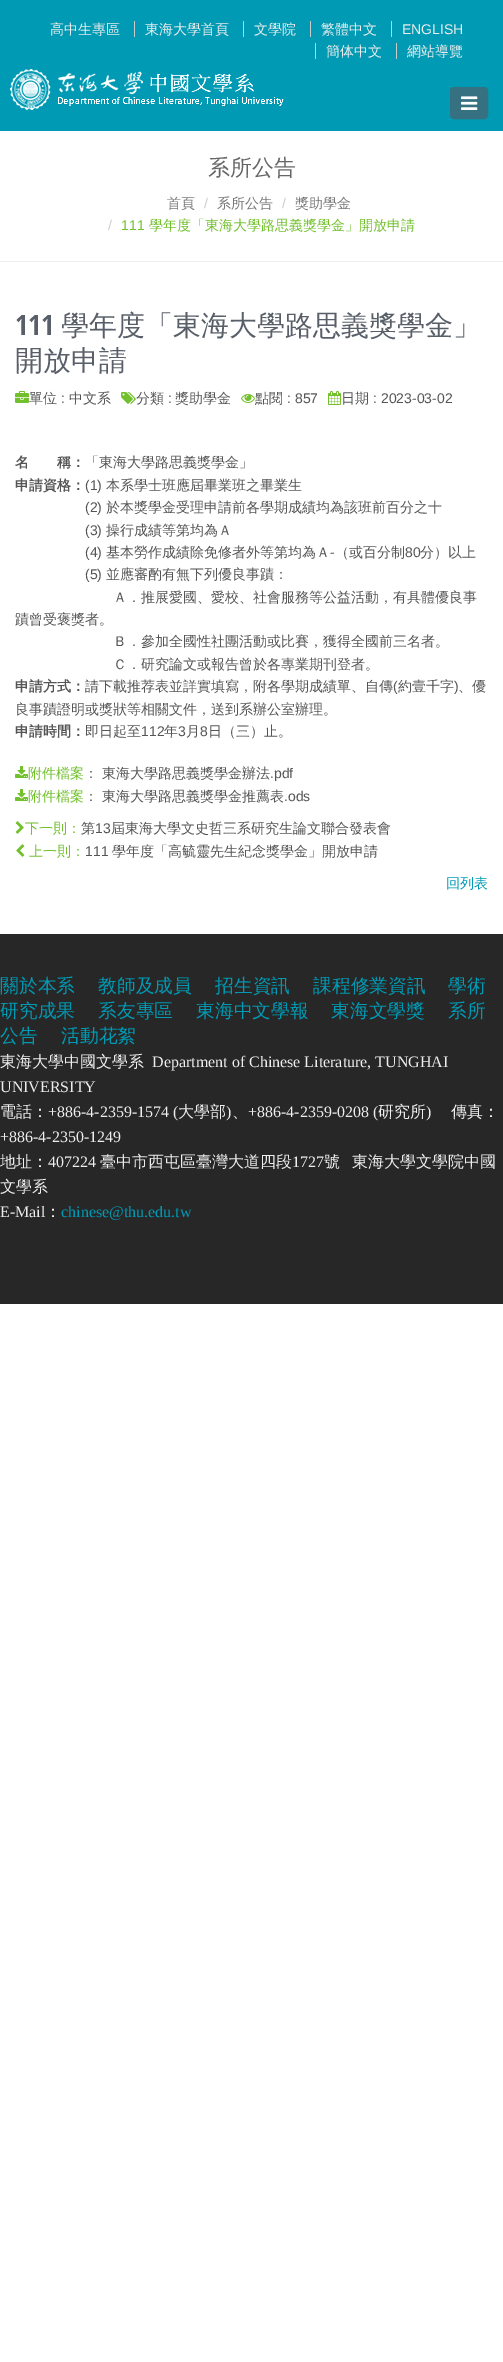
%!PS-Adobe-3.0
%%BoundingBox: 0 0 503 2362
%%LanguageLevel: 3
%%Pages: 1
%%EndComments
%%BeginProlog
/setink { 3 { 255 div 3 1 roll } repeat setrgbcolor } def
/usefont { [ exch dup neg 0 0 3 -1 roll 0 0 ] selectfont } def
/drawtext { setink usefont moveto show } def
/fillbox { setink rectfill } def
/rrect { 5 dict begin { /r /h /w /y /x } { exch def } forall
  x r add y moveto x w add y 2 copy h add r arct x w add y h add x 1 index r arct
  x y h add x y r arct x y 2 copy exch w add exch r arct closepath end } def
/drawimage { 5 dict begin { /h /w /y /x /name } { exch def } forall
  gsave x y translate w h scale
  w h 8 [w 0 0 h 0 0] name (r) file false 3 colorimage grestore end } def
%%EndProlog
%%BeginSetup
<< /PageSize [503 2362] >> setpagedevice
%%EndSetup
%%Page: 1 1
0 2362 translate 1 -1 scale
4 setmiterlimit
0 0 503 2362 255 255 255 fillbox
0 0 503 131 0 154 180 fillbox
(高中生專區) 50 34 /WenQuanYiZenHei-Medium 14 238 238 238 drawtext
(東海大學首頁) 145 34 /WenQuanYiZenHei-Medium 14 238 238 238 drawtext
134 21 1 16 204 204 204 fillbox
(文學院) 254 34 /WenQuanYiZenHei-Medium 14 238 238 238 drawtext
243 21 1 16 204 204 204 fillbox
(繁體中文) 321 34 /WenQuanYiZenHei-Medium 14 238 238 238 drawtext
310 21 1 16 204 204 204 fillbox
(ENGLISH) 402 34 /LiberationSans-Regular 14 238 238 238 drawtext
391 21 1 16 204 204 204 fillbox
(簡体中文) 326 56 /WenQuanYiZenHei-Medium 14 238 238 238 drawtext
315 43 1 16 204 204 204 fillbox
(網站導覽) 407 56 /WenQuanYiZenHei-Medium 14 238 238 238 drawtext
396 43 1 16 204 204 204 fillbox
(assets/img1.rgb) 10 69 274 41 drawimage
53 113 129 setink
450.5 87.5 37 31 3.5 rrect gsave fill grestore
stroke
(assets/img2.rgb) 461 96 17 14 drawimage
0 261 503 1 238 238 238 fillbox
(系所公告) 208 175 /WenQuanYiZenHei-Medium 22 102 102 102 drawtext
(首頁) 167 208 /WenQuanYiZenHei-Medium 14 119 119 119 drawtext
(/) 204 208 /LiberationSans-Regular 14 204 204 204 drawtext
(系所公告) 217 208 /WenQuanYiZenHei-Medium 14 119 119 119 drawtext
(/) 282 208 /LiberationSans-Regular 14 204 204 204 drawtext
(獎助學金) 295 208 /WenQuanYiZenHei-Medium 14 119 119 119 drawtext
(/) 108 230 /LiberationSans-Regular 14 204 204 204 drawtext
(111) 121 230 /LiberationSans-Regular 14 114 192 44 drawtext
(學年度「東海大學路思義獎學金」開放申請) 149 230 /WenQuanYiZenHei-Medium 14 114 192 44 drawtext
(111) 15 335 /OpenSansCondensed-Bold 28 88 95 105 drawtext
(學年度「東海大學路思義獎學金」) 61 335 /WenQuanYiZenHei-Medium 28 88 95 105 drawtext
(開放申請) 15 370 /WenQuanYiZenHei-Medium 28 88 95 105 drawtext
(assets/img3.rgb) 15 391 14 12 drawimage
(單位) 29 403 /WenQuanYiZenHei-Medium 14 85 85 85 drawtext
(:) 61 403 /LiberationSans-Regular 14 85 85 85 drawtext
(中文系) 69 403 /WenQuanYiZenHei-Medium 14 85 85 85 drawtext
(assets/img4.rgb) 121 392 15 12 drawimage
(分類) 136 403 /WenQuanYiZenHei-Medium 14 85 85 85 drawtext
(:) 168 403 /LiberationSans-Regular 14 85 85 85 drawtext
(獎助學金) 175 403 /WenQuanYiZenHei-Medium 14 85 85 85 drawtext
(assets/img5.rgb) 241 394 14 9 drawimage
(點閱) 255 403 /WenQuanYiZenHei-Medium 14 85 85 85 drawtext
(: 857) 287 403 /LiberationSans-Regular 14 85 85 85 drawtext
(assets/img6.rgb) 328 391 13 14 drawimage
(日期) 341 403 /WenQuanYiZenHei-Medium 14 85 85 85 drawtext
(: 2023-03-02) 373 403 /LiberationSans-Regular 14 85 85 85 drawtext
(名　　稱：) 15 467 /WenQuanYiZenHei-Bold 14 85 85 85 drawtext
(「東海大學路思義獎學金」) 85 467 /WenQuanYiZenHei-Medium 14 85 85 85 drawtext
(申請資格：) 15 490 /WenQuanYiZenHei-Bold 14 85 85 85 drawtext
(\(1\)) 85 490 /LiberationSans-Regular 14 85 85 85 drawtext
(本系學士班應屆畢業班之畢業生) 106 490 /WenQuanYiZenHei-Medium 14 85 85 85 drawtext
(\(2\)) 85 512 /LiberationSans-Regular 14 85 85 85 drawtext
(於本獎學金受理申請前各學期成績均為該班前百分之十) 106 512 /WenQuanYiZenHei-Medium 14 85 85 85 drawtext
(\(3\)) 85 535 /LiberationSans-Regular 14 85 85 85 drawtext
(操行成績等第均為Ａ) 106 535 /WenQuanYiZenHei-Medium 14 85 85 85 drawtext
(\(4\)) 85 557 /LiberationSans-Regular 14 85 85 85 drawtext
(基本勞作成績除免修者外等第均為Ａ) 106 557 /WenQuanYiZenHei-Medium 14 85 85 85 drawtext
(-) 330 557 /LiberationSans-Regular 14 85 85 85 drawtext
(（或百分制) 335 557 /WenQuanYiZenHei-Medium 14 85 85 85 drawtext
(80) 405 557 /LiberationSans-Regular 14 85 85 85 drawtext
(分）以上) 420 557 /WenQuanYiZenHei-Medium 14 85 85 85 drawtext
(\(5\)) 85 579 /LiberationSans-Regular 14 85 85 85 drawtext
(並應審酌有無下列優良事蹟：) 106 579 /WenQuanYiZenHei-Medium 14 85 85 85 drawtext
(Ａ．推展愛國、愛校、社會服務等公益活動，有具體優良事) 113 602 /WenQuanYiZenHei-Medium 14 85 85 85 drawtext
(蹟曾受褒獎者。) 15 624 /WenQuanYiZenHei-Medium 14 85 85 85 drawtext
(Ｂ．參加全國性社團活動或比賽，獲得全國前三名者。) 113 646 /WenQuanYiZenHei-Medium 14 85 85 85 drawtext
(Ｃ．研究論文或報告曾於各專業期刊登者。) 113 669 /WenQuanYiZenHei-Medium 14 85 85 85 drawtext
(申請方式：) 15 691 /WenQuanYiZenHei-Bold 14 85 85 85 drawtext
(請下載推荐表並詳實填寫，附各學期成績單、自傳) 85 691 /WenQuanYiZenHei-Medium 14 85 85 85 drawtext
(\() 393 691 /LiberationSans-Regular 14 85 85 85 drawtext
(約壹千字) 398 691 /WenQuanYiZenHei-Medium 14 85 85 85 drawtext
(\)) 454 691 /LiberationSans-Regular 14 85 85 85 drawtext
(、優) 458 691 /WenQuanYiZenHei-Medium 14 85 85 85 drawtext
(良事蹟證明或獎狀等相關文件，送到系辦公室辦理。) 15 714 /WenQuanYiZenHei-Medium 14 85 85 85 drawtext
(申請時間：) 15 736 /WenQuanYiZenHei-Bold 14 85 85 85 drawtext
(即日起至) 85 736 /WenQuanYiZenHei-Medium 14 85 85 85 drawtext
(112) 141 736 /LiberationSans-Regular 14 85 85 85 drawtext
(年) 164 736 /WenQuanYiZenHei-Medium 14 85 85 85 drawtext
(3) 178 736 /LiberationSans-Regular 14 85 85 85 drawtext
(月) 186 736 /WenQuanYiZenHei-Medium 14 85 85 85 drawtext
(8) 200 736 /LiberationSans-Regular 14 85 85 85 drawtext
(日（三）止。) 208 736 /WenQuanYiZenHei-Medium 14 85 85 85 drawtext
(assets/img7.rgb) 15 766 13 12 drawimage
(附件檔案) 28 778 /WenQuanYiZenHei-Medium 14 114 192 44 drawtext
(：) 84 778 /WenQuanYiZenHei-Medium 14 85 85 85 drawtext
(東海大學路思義獎學金辦法) 102 778 /WenQuanYiZenHei-Medium 14 85 85 85 drawtext
(.pdf) 270 778 /LiberationSans-Regular 14 85 85 85 drawtext
(assets/img7.rgb) 15 789 13 12 drawimage
(附件檔案) 28 801 /WenQuanYiZenHei-Medium 14 114 192 44 drawtext
(：) 84 801 /WenQuanYiZenHei-Medium 14 85 85 85 drawtext
(東海大學路思義獎學金推薦表) 102 801 /WenQuanYiZenHei-Medium 14 85 85 85 drawtext
(.ods) 284 801 /LiberationSans-Regular 14 85 85 85 drawtext
(assets/img8.rgb) 15 821 9 13 drawimage
(下一則：) 25 833 /WenQuanYiZenHei-Medium 14 114 192 44 drawtext
(第) 81 833 /WenQuanYiZenHei-Medium 14 85 85 85 drawtext
(13) 95 833 /LiberationSans-Regular 14 85 85 85 drawtext
(屆東海大學文史哲三系研究生論文聯合發表會) 111 833 /WenQuanYiZenHei-Medium 14 85 85 85 drawtext
(assets/img9.rgb) 16 844 9 13 drawimage
(上一則：) 29 856 /WenQuanYiZenHei-Medium 14 114 192 44 drawtext
(111) 85 856 /LiberationSans-Regular 14 85 85 85 drawtext
(學年度「高毓靈先生紀念獎學金」開放申請) 112 856 /WenQuanYiZenHei-Medium 14 85 85 85 drawtext
(回列表) 446 888 /WenQuanYiZenHei-Medium 14 0 154 180 drawtext
0 934 503 370 39 39 39 fillbox
(關於本系) 0 992 /WenQuanYiZenHei-Medium 18.75 0 154 180 drawtext
(教師及成員) 98 992 /WenQuanYiZenHei-Medium 18.75 0 154 180 drawtext
(招生資訊) 215 992 /WenQuanYiZenHei-Medium 18.75 0 154 180 drawtext
(課程修業資訊) 313 992 /WenQuanYiZenHei-Medium 18.75 0 154 180 drawtext
(學術) 448 992 /WenQuanYiZenHei-Medium 18.75 0 154 180 drawtext
(研究成果) 0 1017 /WenQuanYiZenHei-Medium 18.75 0 154 180 drawtext
(系友專區) 98 1017 /WenQuanYiZenHei-Medium 18.75 0 154 180 drawtext
(東海中文學報) 196 1017 /WenQuanYiZenHei-Medium 18.75 0 154 180 drawtext
(東海文學獎) 331 1017 /WenQuanYiZenHei-Medium 18.75 0 154 180 drawtext
(系所) 448 1017 /WenQuanYiZenHei-Medium 18.75 0 154 180 drawtext
(公告) 0 1042 /WenQuanYiZenHei-Medium 18.75 0 154 180 drawtext
(活動花絮) 61 1042 /WenQuanYiZenHei-Medium 18.75 0 154 180 drawtext
(東海大學中國文學系) 0 1067 /WenQuanYiZenHei-Medium 16 238 238 238 drawtext
(Department of Chinese Literature, TUNGHAI) 152 1067 /LiberationSerif-Regular 16 238 238 238 drawtext
(UNIVERSITY) 0 1092 /LiberationSerif-Regular 16 238 238 238 drawtext
(電話：) 0 1117 /WenQuanYiZenHei-Medium 16 238 238 238 drawtext
(+886-4-2359-1574 \() 48 1117 /LiberationSerif-Regular 16 238 238 238 drawtext
(大學部) 178 1117 /WenQuanYiZenHei-Medium 16 238 238 238 drawtext
(\)) 226 1117 /LiberationSerif-Regular 16 238 238 238 drawtext
(、) 232 1117 /WenQuanYiZenHei-Medium 16 238 238 238 drawtext
(+886-4-2359-0208 \() 248 1117 /LiberationSerif-Regular 16 238 238 238 drawtext
(研究所) 378 1117 /WenQuanYiZenHei-Medium 16 238 238 238 drawtext
(\)) 426 1117 /LiberationSerif-Regular 16 238 238 238 drawtext
(傳真：) 451 1117 /WenQuanYiZenHei-Medium 16 238 238 238 drawtext
(+886-4-2350-1249) 0 1142 /LiberationSerif-Regular 16 238 238 238 drawtext
(地址：) 0 1167 /WenQuanYiZenHei-Medium 16 238 238 238 drawtext
(407224) 48 1167 /LiberationSerif-Regular 16 238 238 238 drawtext
(臺中市西屯區臺灣大道四段) 100 1167 /WenQuanYiZenHei-Medium 16 238 238 238 drawtext
(1727) 292 1167 /LiberationSerif-Regular 16 238 238 238 drawtext
(號) 324 1167 /WenQuanYiZenHei-Medium 16 238 238 238 drawtext
(東海大學文學院中國) 352 1167 /WenQuanYiZenHei-Medium 16 238 238 238 drawtext
(文學系) 0 1192 /WenQuanYiZenHei-Medium 16 238 238 238 drawtext
(E-Mail) 0 1217 /LiberationSerif-Regular 16 238 238 238 drawtext
(：) 45 1217 /WenQuanYiZenHei-Medium 16 238 238 238 drawtext
(chinese@thu.edu.tw) 61 1217 /LiberationSerif-Regular 16 0 154 180 drawtext
showpage
%%EOF
